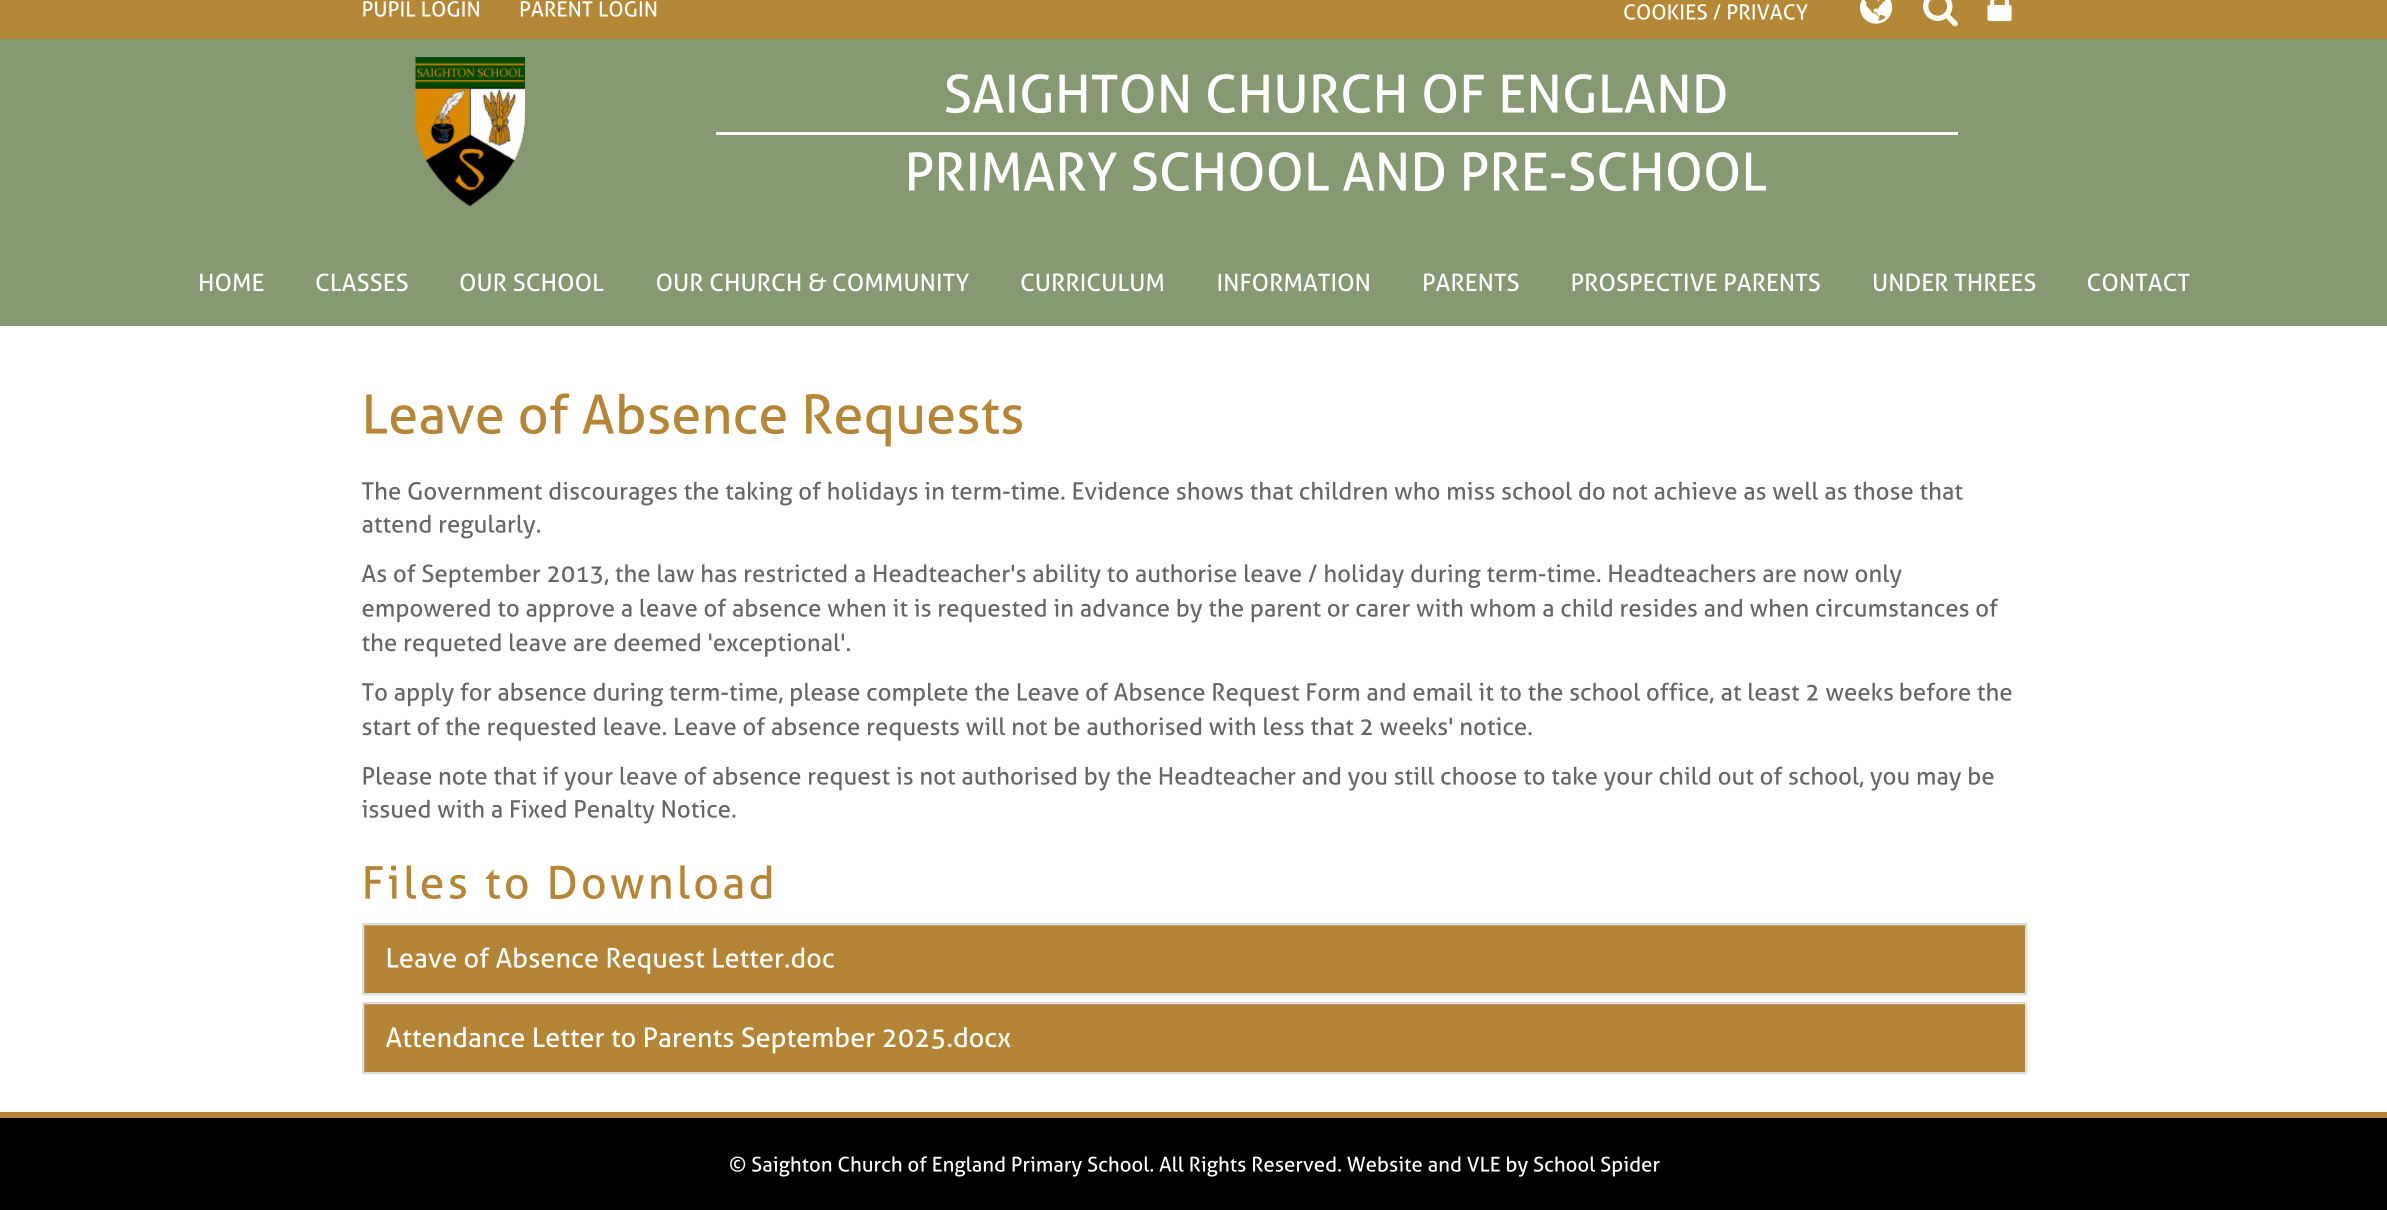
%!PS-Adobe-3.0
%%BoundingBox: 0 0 2387 1210
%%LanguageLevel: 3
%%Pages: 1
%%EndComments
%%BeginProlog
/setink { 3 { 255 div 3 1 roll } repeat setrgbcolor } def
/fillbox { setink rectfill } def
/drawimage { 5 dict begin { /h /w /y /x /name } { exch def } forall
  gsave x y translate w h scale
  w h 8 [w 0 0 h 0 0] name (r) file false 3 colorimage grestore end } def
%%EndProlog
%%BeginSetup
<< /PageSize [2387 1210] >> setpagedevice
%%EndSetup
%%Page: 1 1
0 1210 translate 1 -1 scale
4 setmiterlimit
0 0 2387 1210 255 255 255 fillbox
0 0 2387 39 181 136 55 fillbox
(assets/img1.rgb) 363 1 116 16 drawimage
(assets/img2.rgb) 520 1 137 16 drawimage
(assets/img3.rgb) 1624 4 184 16 drawimage
(assets/img4.rgb) 1860 0 33 24 drawimage
(assets/img5.rgb) 1923 0 35 27 drawimage
(assets/img6.rgb) 1987 0 25 21 drawimage
0 39 2387 287 135 153 114 fillbox
(assets/img7.rgb) 415 57 110 149 drawimage
(assets/img8.rgb) 946 74 780 40 drawimage
716 132 1242 3 255 255 255 fillbox
(assets/img9.rgb) 909 152 858 40 drawimage
(assets/img10.rgb) 200 273 64 19 drawimage
(assets/img11.rgb) 316 273 92 19 drawimage
(assets/img12.rgb) 460 273 144 19 drawimage
(assets/img13.rgb) 657 273 312 19 drawimage
(assets/img14.rgb) 1021 273 143 19 drawimage
(assets/img15.rgb) 1218 273 151 19 drawimage
(assets/img16.rgb) 1424 273 95 19 drawimage
(assets/img17.rgb) 1572 273 248 19 drawimage
(assets/img18.rgb) 1873 273 163 19 drawimage
(assets/img19.rgb) 2087 273 103 19 drawimage
0 1112 2387 6 181 132 55 fillbox
(assets/img20.rgb) 366 393 657 54 drawimage
(assets/img21.rgb) 362 481 1601 25 drawimage
(assets/img22.rgb) 362 514 179 25 drawimage
(assets/img23.rgb) 362 564 1540 24 drawimage
(assets/img24.rgb) 362 598 1637 25 drawimage
(assets/img25.rgb) 362 633 488 24 drawimage
(assets/img26.rgb) 362 682 1352 25 drawimage
(assets/img27.rgb) 1721 682 172 19 drawimage
(assets/img28.rgb) 1900 682 112 19 drawimage
(assets/img29.rgb) 362 717 1170 24 drawimage
(assets/img30.rgb) 363 766 1631 25 drawimage
(assets/img31.rgb) 362 799 374 25 drawimage
(assets/img32.rgb) 365 865 407 34 drawimage
181 133 55 setink
363 924 moveto 2026 924 lineto 2026 994 lineto 363 994 lineto closepath gsave fill grestore
221 221 221 setink
2 setlinewidth
stroke
(assets/img33.rgb) 387 947 447 27 drawimage
181 133 55 setink
363 1003 moveto 2026 1003 lineto 2026 1073 lineto 363 1073 lineto closepath gsave fill grestore
221 221 221 setink
stroke
(assets/img34.rgb) 386 1027 625 27 drawimage
0 1118 2387 92 0 0 0 fillbox
(assets/img35.rgb) 730 1156 798 21 drawimage
(assets/img36.rgb) 1534 1156 126 21 drawimage
showpage
%%EOF
